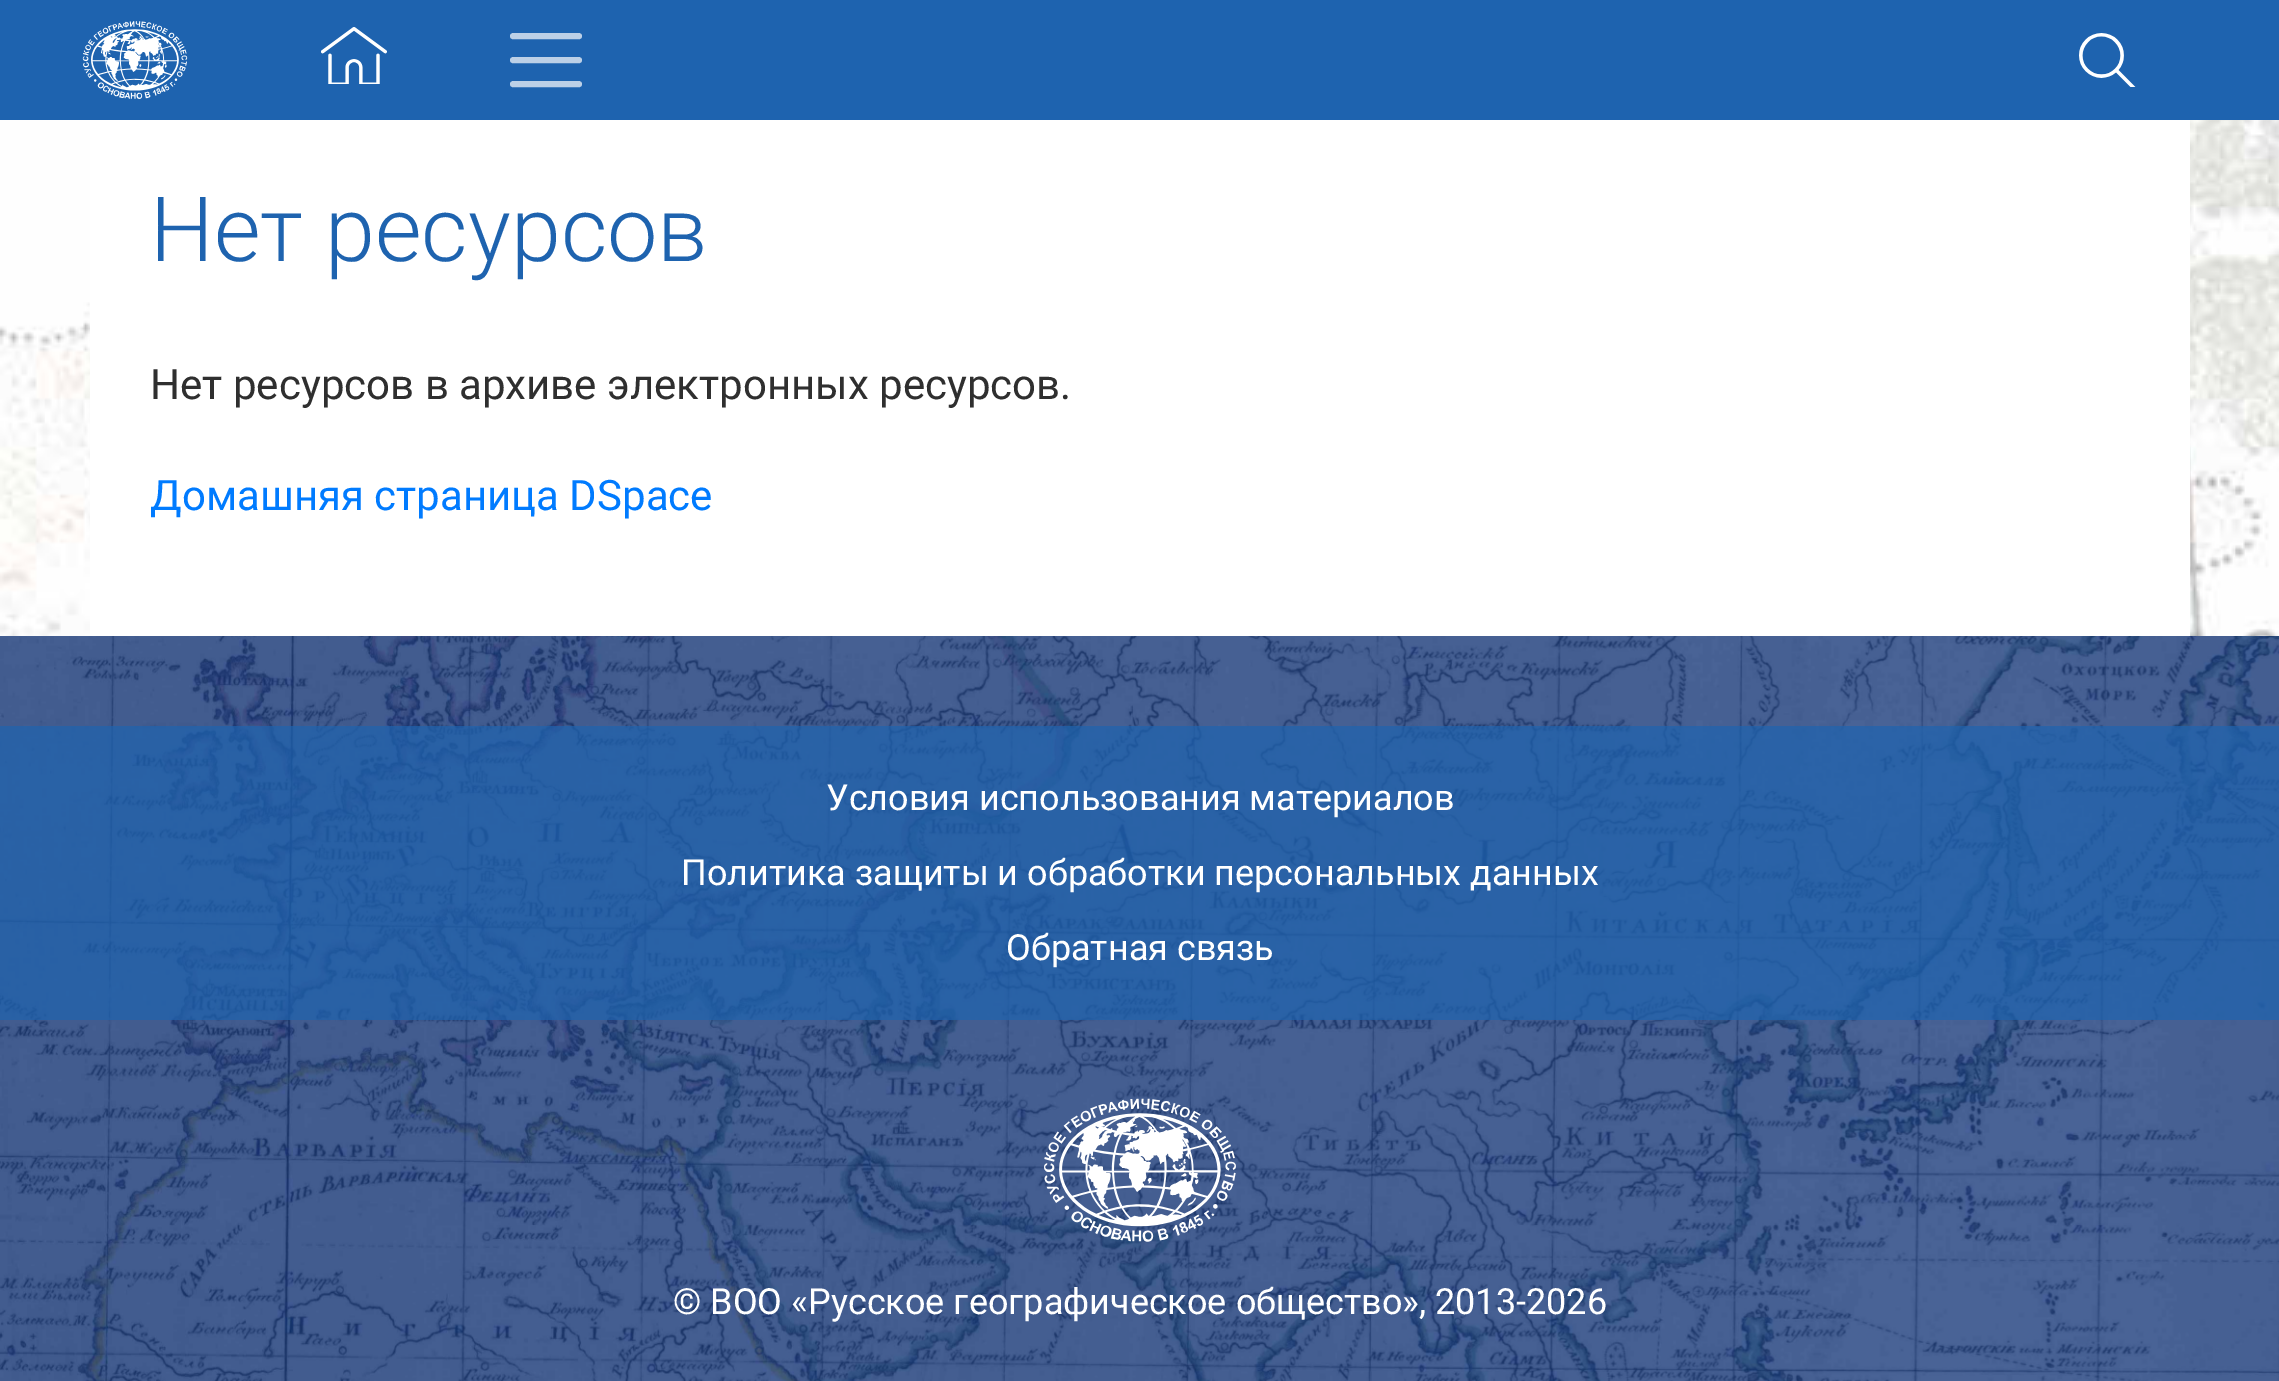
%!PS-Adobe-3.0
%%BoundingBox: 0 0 2279 1381
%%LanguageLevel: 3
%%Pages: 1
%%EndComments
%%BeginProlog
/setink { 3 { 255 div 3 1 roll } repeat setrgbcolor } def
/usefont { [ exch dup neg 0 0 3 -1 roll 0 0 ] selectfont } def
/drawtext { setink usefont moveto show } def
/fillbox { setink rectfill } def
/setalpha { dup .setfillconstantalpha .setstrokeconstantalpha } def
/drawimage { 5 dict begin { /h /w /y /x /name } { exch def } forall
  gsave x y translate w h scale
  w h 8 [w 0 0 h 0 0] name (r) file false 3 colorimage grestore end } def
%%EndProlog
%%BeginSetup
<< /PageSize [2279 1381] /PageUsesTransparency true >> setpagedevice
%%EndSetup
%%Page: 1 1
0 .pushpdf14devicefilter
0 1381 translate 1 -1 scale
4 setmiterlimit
0 0 2279 1381 255 255 255 fillbox
0 0 2279 120 30 99 175 fillbox
(assets/img1.rgb) 82 21 106 78 drawimage
(assets/img2.rgb) 321 27 66 57 drawimage
188 208 231 setink
6 setlinewidth
1 setlinecap
513 36 moveto 579 36 lineto 513 60 moveto 579 60 lineto 513 84 moveto 579 84 lineto stroke
(assets/img3.rgb) 2079 33 57 54 drawimage
(assets/img4.rgb) 0 120 2279 516 drawimage
(assets/img5.rgb) 45 367 2190 190 drawimage
90 120 2100 516 255 255 255 fillbox
(Нет ресурсов) 150 261 /Roboto-Light 90 30 99 175 drawtext
(Нет ресурсов в архиве электронных ресурсов.) 150 399 /Roboto-Regular 42 47 47 47 drawtext
(Домашняя страница DSpace) 150 510 /Roboto-Regular 42 0 123 255 drawtext
(assets/img6.rgb) 0 636 2279 745 drawimage
0.7 setalpha
0 726 2279 294 30 99 175 fillbox
1 setalpha
(Условия использования материалов) 826 810 /Roboto-Regular 36 255 255 255 drawtext
(Политика защиты и обработки персональных данных) 681 885 /Roboto-Regular 36 255 255 255 drawtext
(Обратная связь) 1006 960 /Roboto-Regular 36 255 255 255 drawtext
(assets/img7.rgb) 1044 1098 192 144 drawimage
(© ВОО «Русское географическое общество», 2013-2026) 673 1314 /Roboto-Regular 36 255 255 255 drawtext
.poppdf14devicefilter showpage
%%EOF
